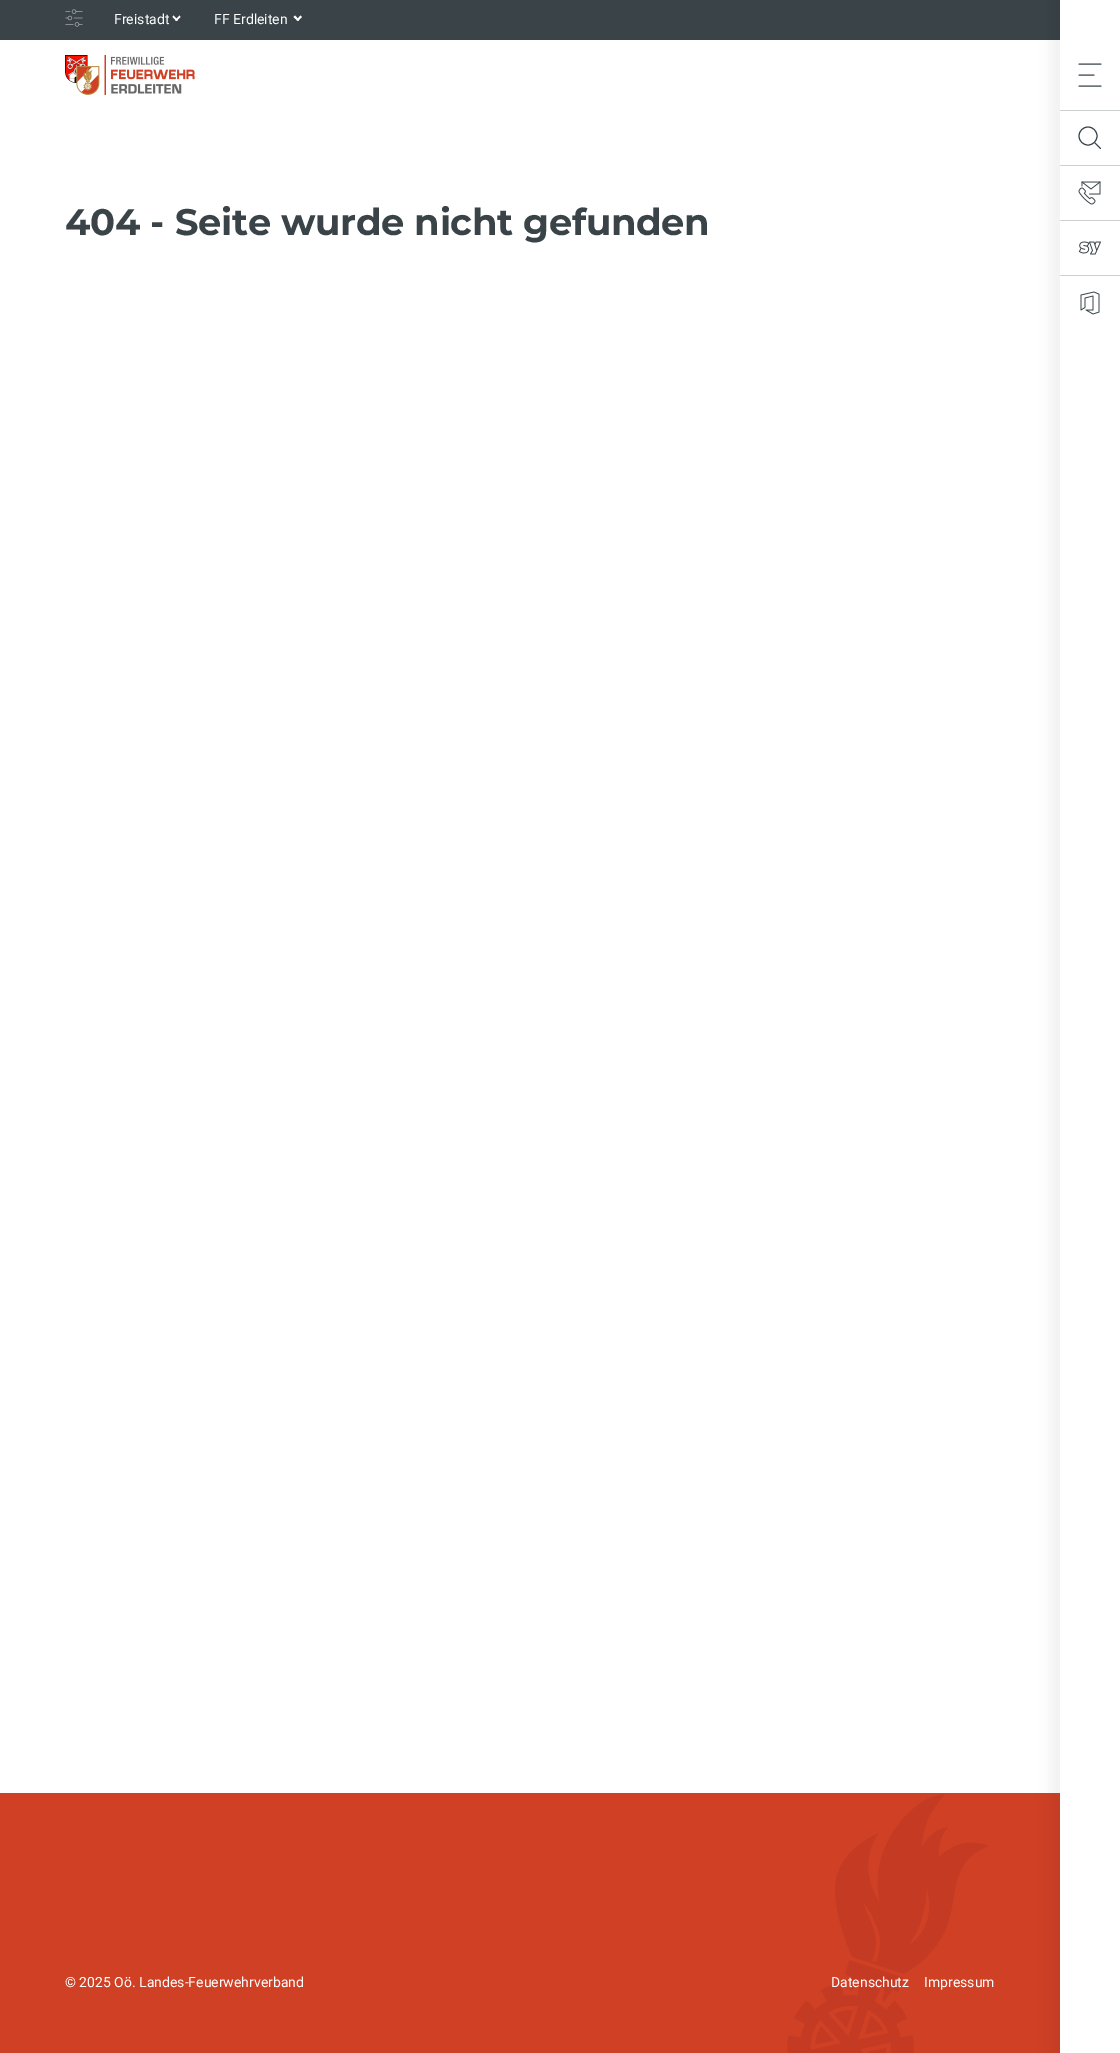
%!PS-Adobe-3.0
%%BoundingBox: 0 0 1120 2053
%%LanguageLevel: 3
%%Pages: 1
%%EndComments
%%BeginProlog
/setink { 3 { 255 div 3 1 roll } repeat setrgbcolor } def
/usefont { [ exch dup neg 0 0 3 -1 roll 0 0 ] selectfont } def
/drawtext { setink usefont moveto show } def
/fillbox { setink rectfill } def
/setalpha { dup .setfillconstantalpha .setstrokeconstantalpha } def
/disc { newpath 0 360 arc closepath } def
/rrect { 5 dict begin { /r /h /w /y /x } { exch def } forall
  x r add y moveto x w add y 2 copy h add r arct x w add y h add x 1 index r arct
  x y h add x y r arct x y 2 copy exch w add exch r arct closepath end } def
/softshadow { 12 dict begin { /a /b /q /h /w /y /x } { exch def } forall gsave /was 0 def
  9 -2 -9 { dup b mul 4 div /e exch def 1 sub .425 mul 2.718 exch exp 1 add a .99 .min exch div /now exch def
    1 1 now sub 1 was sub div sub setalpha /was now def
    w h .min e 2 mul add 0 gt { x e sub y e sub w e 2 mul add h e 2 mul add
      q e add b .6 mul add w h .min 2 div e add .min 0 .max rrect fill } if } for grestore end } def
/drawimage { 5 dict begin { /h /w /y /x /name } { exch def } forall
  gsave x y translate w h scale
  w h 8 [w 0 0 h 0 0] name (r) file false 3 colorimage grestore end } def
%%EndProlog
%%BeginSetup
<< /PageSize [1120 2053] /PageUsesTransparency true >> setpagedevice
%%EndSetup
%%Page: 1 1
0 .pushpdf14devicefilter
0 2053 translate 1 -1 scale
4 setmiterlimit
0 0 1120 2053 255 255 255 fillbox
0 0 1060 40 57 67 72 fillbox
(assets/img1.rgb) 65 9 18 18 drawimage
(Freistadt) 114 24 /Roboto-Regular 14 255 255 255 drawtext
179.5 15.5 moveto 180.5 17 lineto 176.5 21 lineto 175 20 lineto closepath fill
173.5 15.5 moveto 178 20 lineto 176.5 21 lineto 172.5 17 lineto closepath fill
(FF Erdleiten) 214 24 /Roboto-Regular 14 255 255 255 drawtext
300.5 15.5 moveto 302 17 lineto 298 21 lineto 296.5 20 lineto closepath fill
295 15.5 moveto 299 20 lineto 298 21 lineto 293.5 17 lineto closepath fill
0 1793 1060 260 207 64 37 fillbox
0 0 0 setink
1050 -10 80 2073 0 7.5 0.05 softshadow
1060 0 60 2053 255 255 255 fillbox
1060 110 60 1 205 208 209 fillbox
57 67 72 setink
1088 136 9 disc stroke
1 setlinecap
1 setlinejoin
1095 143 moveto 1100.5 148.5 lineto stroke
1060 165 60 1 205 208 209 fillbox
(assets/img2.rgb) 1078 181 23 24 drawimage
1060 220 60 1 205 208 209 fillbox
(assets/img3.rgb) 1078 241 23 14 drawimage
1060 275 60 1 205 208 209 fillbox
(assets/img4.rgb) 1080 291 20 24 drawimage
(assets/img5.rgb) 65 55 130 40 drawimage
57 67 72 setink
1079 75 moveto 1094 75 lineto 1079 64 moveto 1101 64 lineto 1079 86 moveto 1101 86 lineto stroke
/Montserrat-Thin 36.9 usefont
65 235 moveto -0.25 0 (404 - Seite wurde nicht gefunden) ashow
(assets/img6.rgb) 787 1794 202 259 drawimage
(© 2025 Oö. Landes-Feuerwehrverband) 65 1987 /Roboto-Regular 14 255 255 255 drawtext
(Datenschutz) 831 1987 /Roboto-Regular 14 255 255 255 drawtext
(Impressum) 924 1987 /Roboto-Regular 14 255 255 255 drawtext
.poppdf14devicefilter showpage
%%EOF
